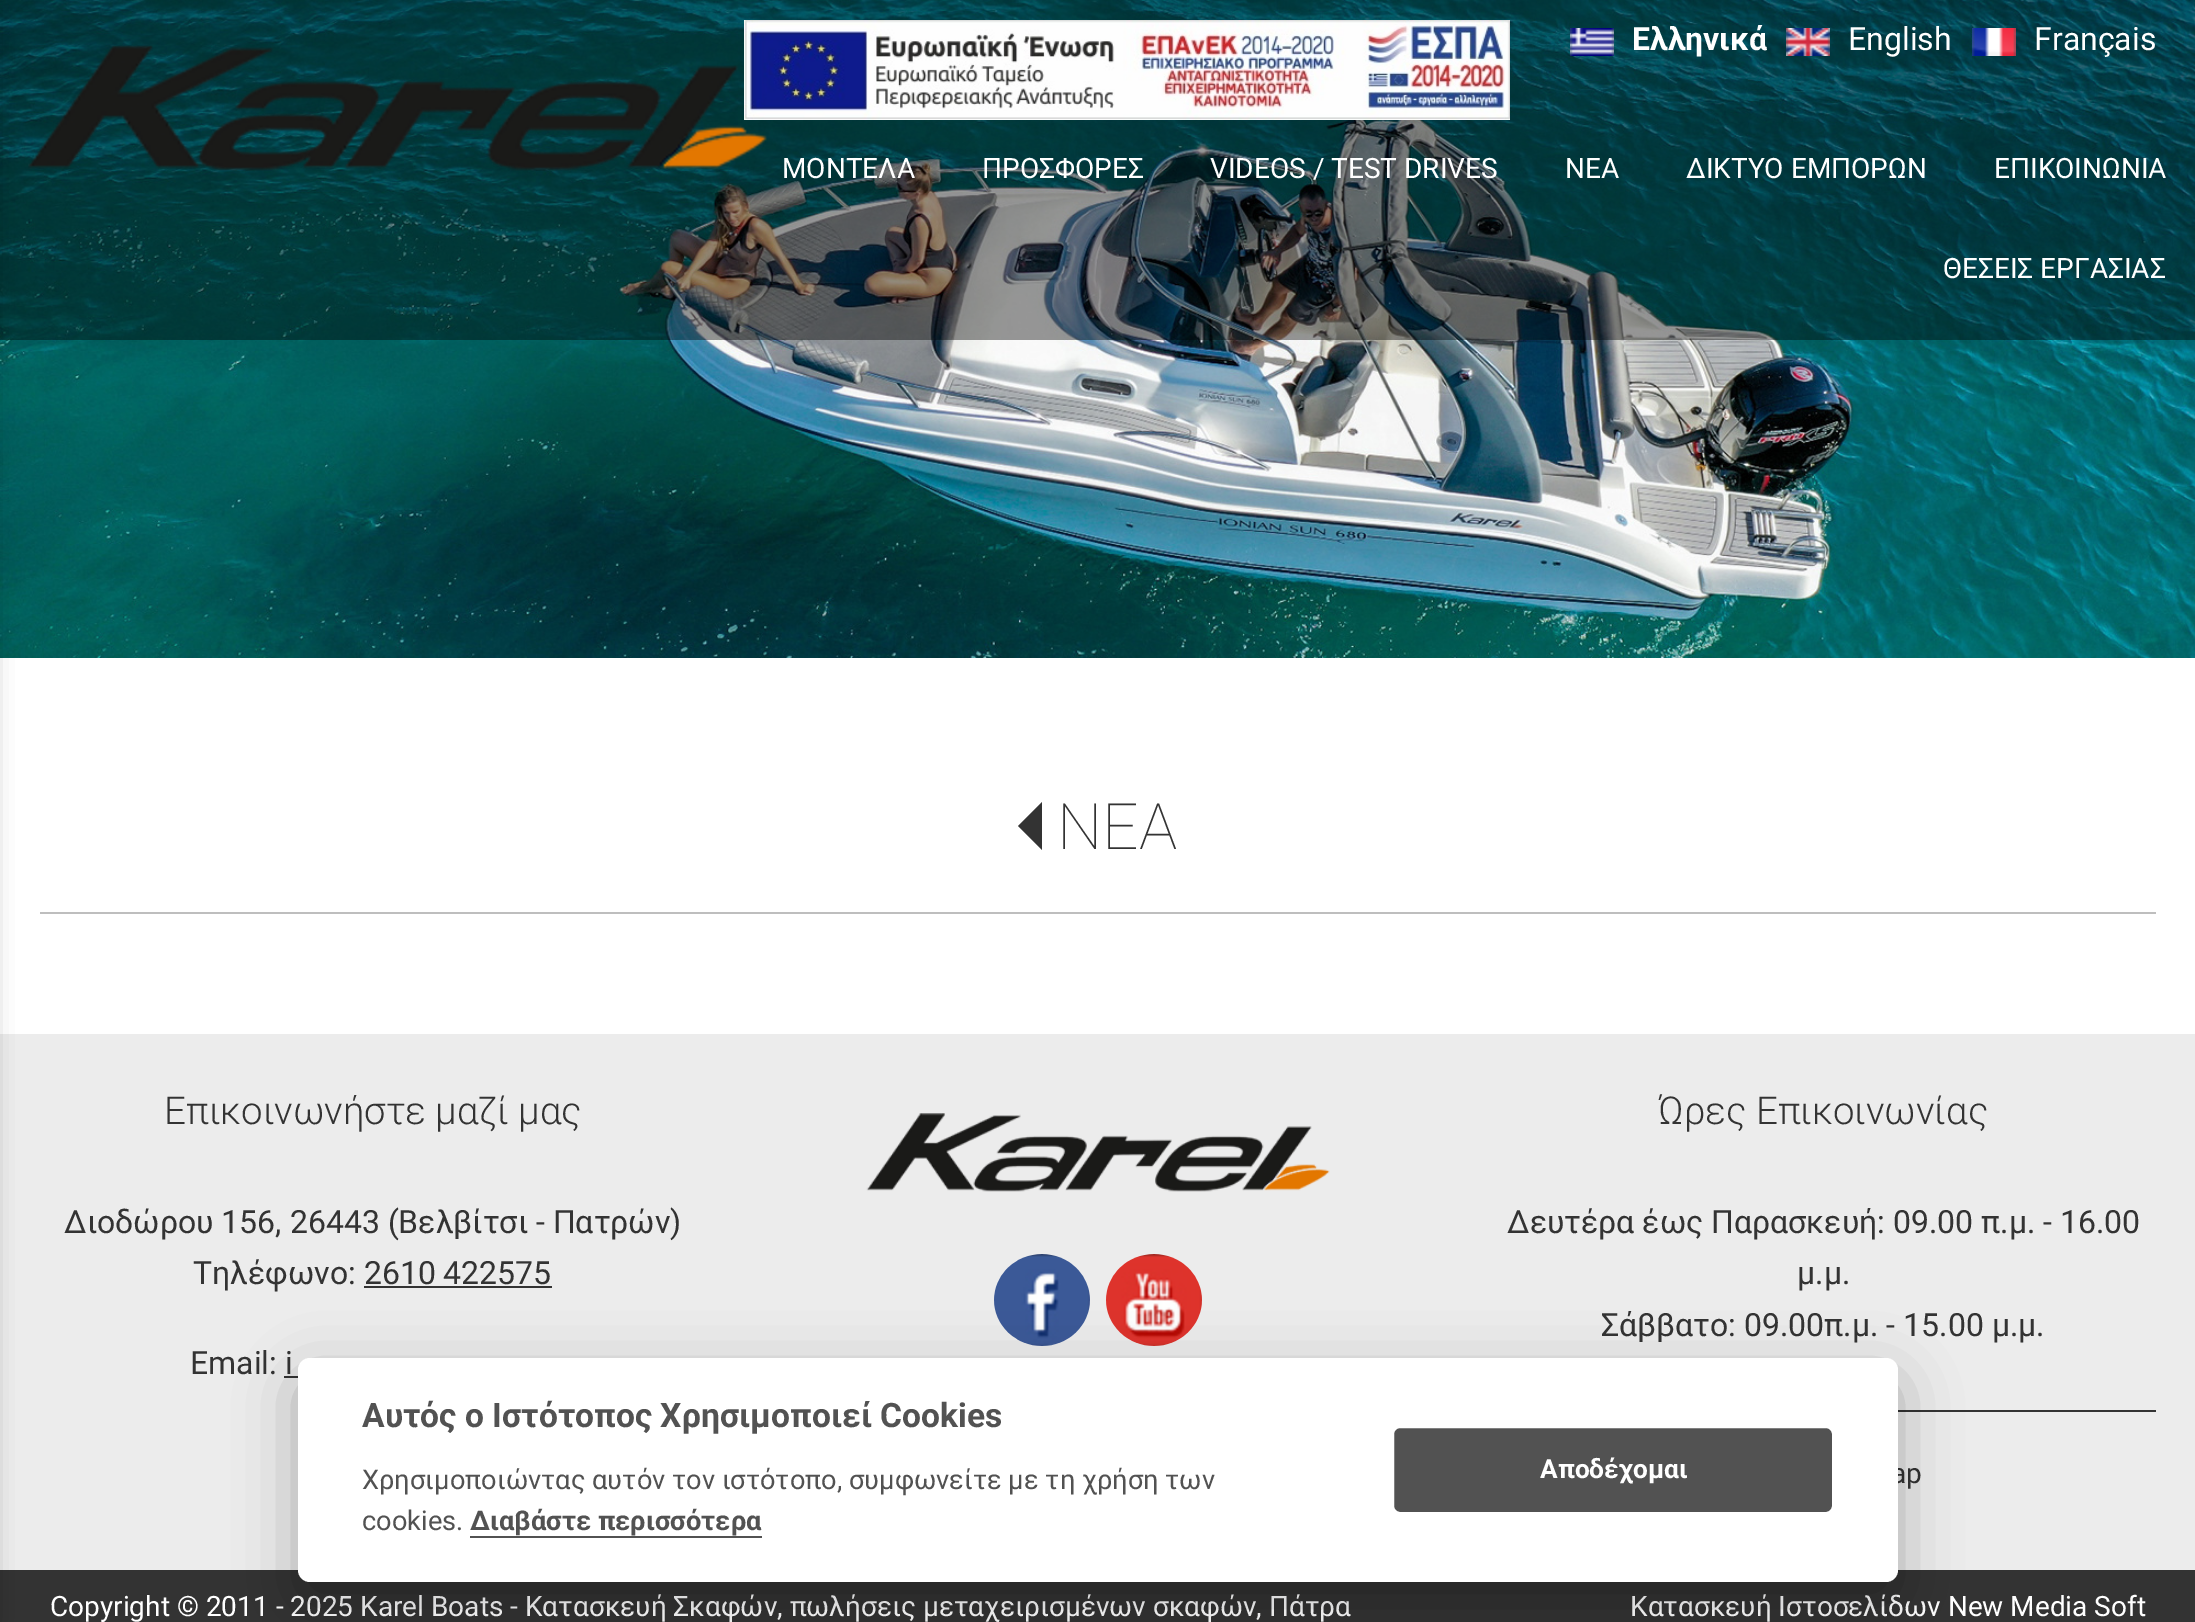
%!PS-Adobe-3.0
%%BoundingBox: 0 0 2195 1622
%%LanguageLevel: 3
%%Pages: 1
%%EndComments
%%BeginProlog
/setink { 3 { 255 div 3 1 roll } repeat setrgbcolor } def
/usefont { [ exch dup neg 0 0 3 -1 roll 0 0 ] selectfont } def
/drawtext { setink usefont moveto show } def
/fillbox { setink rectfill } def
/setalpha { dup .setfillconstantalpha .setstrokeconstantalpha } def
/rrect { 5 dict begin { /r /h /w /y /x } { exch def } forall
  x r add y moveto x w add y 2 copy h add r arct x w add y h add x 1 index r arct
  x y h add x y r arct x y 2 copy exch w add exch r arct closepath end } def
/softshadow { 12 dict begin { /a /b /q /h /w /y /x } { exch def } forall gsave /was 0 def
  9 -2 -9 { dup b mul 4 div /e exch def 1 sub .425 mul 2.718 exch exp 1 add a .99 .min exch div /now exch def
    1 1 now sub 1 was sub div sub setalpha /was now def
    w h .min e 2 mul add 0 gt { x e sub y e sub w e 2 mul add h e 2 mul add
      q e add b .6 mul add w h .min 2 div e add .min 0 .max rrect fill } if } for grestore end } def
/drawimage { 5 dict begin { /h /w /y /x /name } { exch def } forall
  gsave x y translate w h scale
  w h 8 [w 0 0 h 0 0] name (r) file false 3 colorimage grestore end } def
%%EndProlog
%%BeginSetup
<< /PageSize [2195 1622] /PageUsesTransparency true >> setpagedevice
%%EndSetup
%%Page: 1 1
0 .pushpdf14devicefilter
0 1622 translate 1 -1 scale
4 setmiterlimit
0 0 2195 1622 255 255 255 fillbox
(assets/img1.rgb) 0 0 2195 658 drawimage
0.4 setalpha
0 0 2195 100 0 0 0 fillbox
0 100 2195 240 0 0 0 fillbox
1 setalpha
0 1034 2195 536 236 236 236 fillbox
0 1570 2195 52 51 51 51 fillbox
0 0 0 setink
-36 0 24 1622 0 12 0.4 softshadow
(assets/img2.rgb) 744 20 766 100 drawimage
(assets/img3.rgb) 1570 28 44 28 drawimage
(Ελληνικά) 1632 50 /Roboto-Bold 32 255 255 255 drawtext
(assets/img4.rgb) 1786 28 44 28 drawimage
(English) 1848 50 /Roboto-Regular 32 255 255 255 drawtext
(assets/img5.rgb) 1972 28 44 28 drawimage
(Français) 2034 50 /Roboto-Regular 32 255 255 255 drawtext
(assets/img6.rgb) 28 45 739 126 drawimage
(ΜΟΝΤΕΛΑ) 782 178 /Roboto-Regular 28 255 255 255 drawtext
(ΠΡΟΣΦΟΡΕΣ) 982 178 /Roboto-Regular 28 255 255 255 drawtext
(VIDEOS / TEST DRIVES) 1210 178 /Roboto-Regular 28 255 255 255 drawtext
(ΝΕΑ) 1565 178 /Roboto-Regular 28 255 255 255 drawtext
(ΔΙΚΤΥΟ ΕΜΠΟΡΩΝ) 1686 178 /Roboto-Regular 28 255 255 255 drawtext
(ΕΠΙΚΟΙΝΩΝΙΑ) 1994 178 /Roboto-Regular 28 255 255 255 drawtext
(ΘΕΣΕΙΣ ΕΡΓΑΣΙΑΣ) 1943 278 /Roboto-Regular 28 255 255 255 drawtext
40 912 2116 2 190 190 190 fillbox
51 51 51 setink
1042 802 moveto 1042 850 lineto 1018 826 lineto closepath fill
(ΝΕΑ) 1057 849 /Roboto-Thin 64 51 51 51 drawtext
(Επικοινωνήστε μαζί μας) 164 1124 /Roboto-Light 38.4 51 51 51 drawtext
(Διοδώρου 156, 26443 \(Βελβίτσι - Πατρών\)) 64 1233 /Roboto-Regular 32 51 51 51 drawtext
(Τηλέφωνο: 2610 422575) 193 1284 /Roboto-Regular 32 51 51 51 drawtext
364 1286 188 2 51 51 51 fillbox
(Email: i) 190 1374 /Roboto-Regular 32 51 51 51 drawtext
284 1376 14 2 51 51 51 fillbox
(assets/img7.rgb) 866 1113 464 79 drawimage
(assets/img8.rgb) 994 1254 96 92 drawimage
(assets/img9.rgb) 1106 1254 96 92 drawimage
(Ώρες Επικοινωνίας) 1658 1124 /Roboto-Light 38.4 51 51 51 drawtext
1898 1410 258 2 51 51 51 fillbox
(Δευτέρα έως Παρασκευή: 09.00 π.μ. - 16.00) 1507 1233 /Roboto-Regular 32 51 51 51 drawtext
(μ.μ.) 1797 1284 /Roboto-Regular 32 51 51 51 drawtext
(Σάββατο: 09.00π.μ. - 15.00 μ.μ.) 1601 1336 /Roboto-Regular 32 51 51 51 drawtext
(ap) 1891 1483 /Roboto-Regular 28 51 51 51 drawtext
(Copyright © 2011 - 2025 Karel Boats - Κατασκευή Σκαφών, πωλήσεις μεταχειρισμένων σκαφών, Πάτρα) 50 1616 /Roboto-Regular 28 255 255 255 drawtext
(Κατασκευή Ιστοσελίδων New Media Soft) 1630 1616 /Roboto-Regular 28 255 255 255 drawtext
2 2 3 setink
298 1378 1600 224 12 30 0.28 softshadow
255 255 255 setink
298 1358 1600 224 12 rrect fill
(Αυτός ο Ιστότοπος Χρησιμοποιεί Cookies) 362 1427 /Roboto-Bold 33.6 82 82 82 drawtext
(Χρησιμοποιώντας αυτόν τον ιστότοπο, συμφωνείτε με τη χρήση των) 362 1489 /Roboto-Regular 27.2 82 82 82 drawtext
(cookies.) 362 1530 /Roboto-Regular 27.2 82 82 82 drawtext
(Διαβάστε περισσότερα) 470 1530 /Roboto-Bold 27.2 82 82 82 drawtext
470 1536 292 2 82 82 82 fillbox
1393 1427 440 86 7 rrect gsave fill grestore
255 255 255 setink
2 setlinewidth
stroke
(Αποδέχομαι) 1540 1478 /Roboto-Bold 26.25 255 255 255 drawtext
.poppdf14devicefilter showpage
%%EOF
